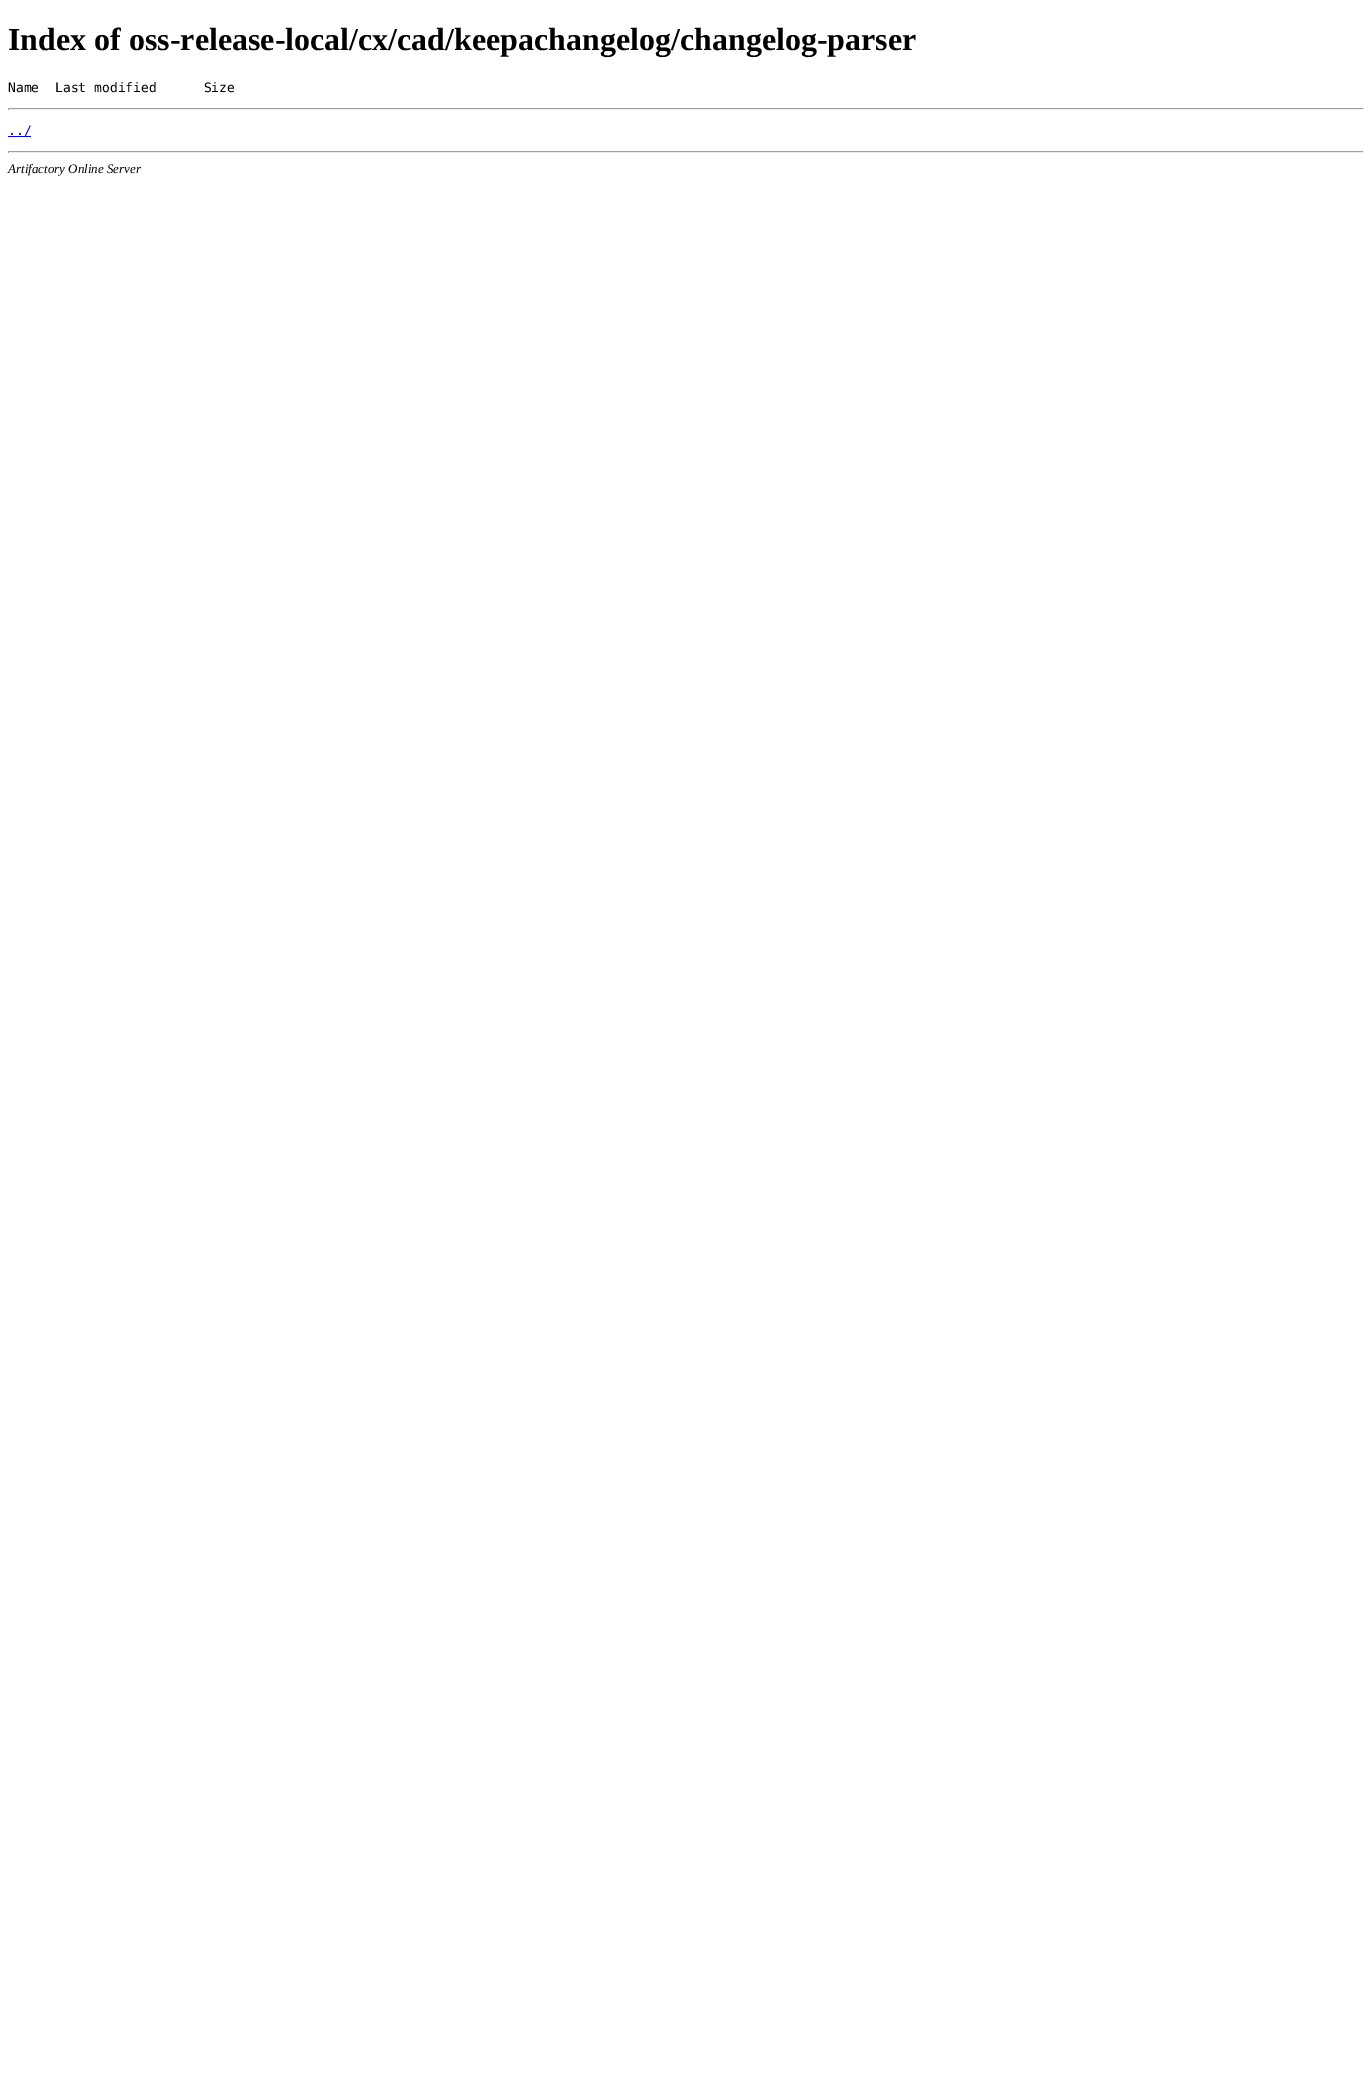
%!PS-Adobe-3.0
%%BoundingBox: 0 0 1372 2083
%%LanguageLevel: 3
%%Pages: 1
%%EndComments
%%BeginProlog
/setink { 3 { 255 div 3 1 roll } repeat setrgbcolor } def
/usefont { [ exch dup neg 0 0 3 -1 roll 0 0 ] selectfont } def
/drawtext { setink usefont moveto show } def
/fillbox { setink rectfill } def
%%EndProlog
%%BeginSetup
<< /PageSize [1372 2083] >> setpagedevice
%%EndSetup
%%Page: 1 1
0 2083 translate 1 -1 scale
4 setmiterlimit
0 0 1372 2083 255 255 255 fillbox
(Index of oss-release-local/cx/cad/keepachangelog/changelog-parser) 8 50 /LiberationSerif-Bold 32 0 0 0 drawtext
(Name  Last modified      Size) 8 92 /DejaVuSansMono-Regular 13 0 0 0 drawtext
8 108 1356 1 159 159 159 fillbox
1363 108 1 2 238 238 238 fillbox
8 109 1356 1 238 238 238 fillbox
8 108 1 2 159 159 159 fillbox
8 136 23 1 0 0 238 fillbox
(../) 8 135 /DejaVuSansMono-Regular 13 0 0 238 drawtext
8 151 1356 1 159 159 159 fillbox
1363 151 1 2 238 238 238 fillbox
8 152 1356 1 238 238 238 fillbox
8 151 1 2 159 159 159 fillbox
(Artifactory Online Server) 8 173 /LiberationSerif-Italic 13 0 0 0 drawtext
showpage
%%EOF
